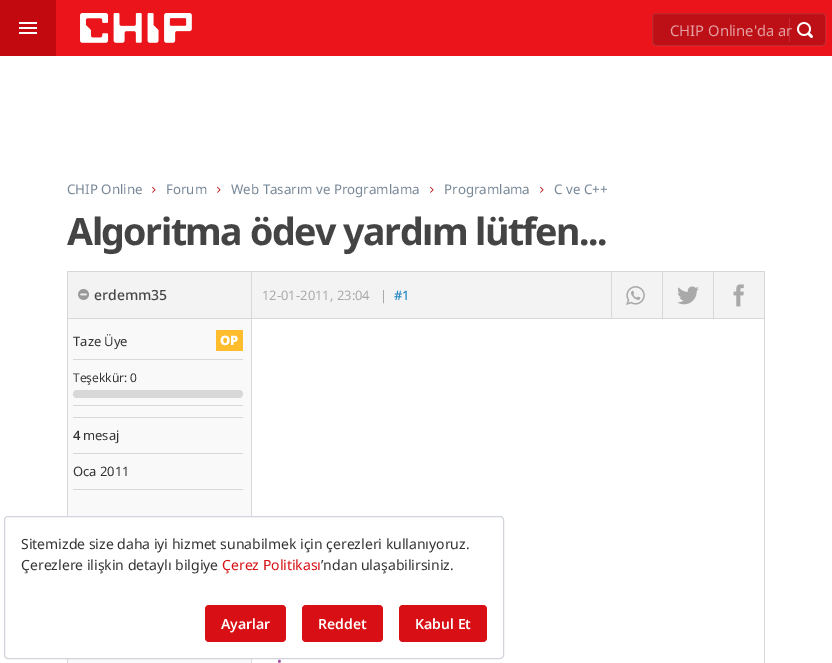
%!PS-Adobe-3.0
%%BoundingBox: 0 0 832 663
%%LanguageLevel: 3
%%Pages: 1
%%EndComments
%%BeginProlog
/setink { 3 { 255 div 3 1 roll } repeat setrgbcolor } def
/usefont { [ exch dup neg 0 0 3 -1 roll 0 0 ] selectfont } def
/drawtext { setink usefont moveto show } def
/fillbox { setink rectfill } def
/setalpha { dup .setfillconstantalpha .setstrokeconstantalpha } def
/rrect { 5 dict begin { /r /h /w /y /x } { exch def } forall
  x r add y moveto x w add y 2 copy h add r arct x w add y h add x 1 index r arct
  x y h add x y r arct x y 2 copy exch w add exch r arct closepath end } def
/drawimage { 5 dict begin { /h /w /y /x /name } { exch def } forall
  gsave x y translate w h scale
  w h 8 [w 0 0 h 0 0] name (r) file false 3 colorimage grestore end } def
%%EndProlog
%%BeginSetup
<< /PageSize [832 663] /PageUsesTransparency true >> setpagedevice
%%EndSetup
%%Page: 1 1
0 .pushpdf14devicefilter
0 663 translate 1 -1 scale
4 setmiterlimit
0 0 832 663 255 255 255 fillbox
56 0 776 56 235 20 27 fillbox
0 0 56 56 193 9 15 fillbox
(assets/img1.rgb) 19 22 18 12 drawimage
(assets/img2.rgb) 80 13 112 30 drawimage
188 16 22 setink
652 13 174 33 4 rrect fill
0.1 setalpha
255 255 255 setink
652.5 13.5 173 32 3.5 rrect stroke
1 setalpha
(CHIP Online'da ar) 670 36 /NotoSans-Regular 14.75 228 159 162 drawtext
0.1 setalpha
789 18 1 24 255 255 255 fillbox
1 setalpha
(assets/img3.rgb) 797 22 16 16 drawimage
(CHIP Online) 67 194 /NotoSans-Regular 13.3 118 134 150 drawtext
(assets/img4.rgb) 152 186 4 7 drawimage
(Forum) 166 194 /NotoSans-Regular 13.3 118 134 150 drawtext
(assets/img4.rgb) 217 186 4 7 drawimage
(Web Tasarım ve Programlama) 231 194 /NotoSans-Regular 13.3 118 134 150 drawtext
(assets/img4.rgb) 430 186 4 7 drawimage
(Programlama) 444 194 /NotoSans-Regular 13.3 118 134 150 drawtext
(assets/img4.rgb) 540 186 4 7 drawimage
(C ve C++) 554 194 /NotoSans-Regular 13.3 118 134 150 drawtext
/NotoSans-Bold 37.6 usefont
68 68 68 setink
67 245 moveto -1.5 0 (Algoritma ödev yardım lütfen...) ashow
68 272 696 46 243 243 243 fillbox
67 271 698 1 216 216 216 fillbox
67 318 698 1 216 216 216 fillbox
251 272 1 46 216 216 216 fillbox
67 272 1 46 216 216 216 fillbox
(assets/img5.rgb) 78 289 11 11 drawimage
(erdemm35) 94 300 /NotoSans-Medium 14 68 68 68 drawtext
764 272 1 46 216 216 216 fillbox
(12-01-2011, 23:04) 262 300 /NotoSans-Regular 13 169 169 169 drawtext
(|) 380 300 /NotoSans-Regular 13 169 169 169 drawtext
(#1) 394 300 /NotoSans-Medium 13 31 133 197 drawtext
611 272 1 46 216 216 216 fillbox
(assets/img6.rgb) 626 286 19 19 drawimage
662 272 1 46 216 216 216 fillbox
(assets/img7.rgb) 677 286 22 19 drawimage
713 272 1 46 216 216 216 fillbox
(assets/img8.rgb) 733 284 11 23 drawimage
68 319 183 344 249 249 249 fillbox
67 319 1 344 216 216 216 fillbox
73 359 170 1 216 216 216 fillbox
(Taze Üye) 73 346 /NotoSans-Regular 13 51 51 51 drawtext
216 330 27 21 255 189 45 fillbox
(OP) 220 345 /NotoSans-Black 13 255 255 255 drawtext
73 405 170 1 216 216 216 fillbox
(Teşekkür: 0) 73 382 /NotoSans-Regular 12 51 51 51 drawtext
216 216 216 setink
73 390 170 8 4 rrect fill
73 417 170 1 216 216 216 fillbox
73 453 170 1 216 216 216 fillbox
(4) 73 440 /NotoSans-Medium 13 51 51 51 drawtext
(mesaj) 83 440 /NotoSans-Regular 13 51 51 51 drawtext
73 489 170 1 216 216 216 fillbox
(Oca 2011) 73 476 /NotoSans-Regular 13 51 51 51 drawtext
764 319 1 344 216 216 216 fillbox
251 319 1 344 216 216 216 fillbox
(•) 277 666 /NotoSans-Regular 13 160 77 163 drawtext
255 255 255 setink
4.5 516.5 499 142 3.5 rrect gsave fill grestore
209 213 219 setink
stroke
(Sitemizde size daha iyi hizmet sunabilmek için çerezleri kullanıyoruz.) 21 549 /NotoSans-Regular 14 51 51 51 drawtext
(Çerezlere ilişkin detaylı bilgiye) 21 570 /NotoSans-Regular 14 51 51 51 drawtext
(Çerez Politikası) 222 570 /NotoSans-Regular 14 215 15 18 drawtext
(’ndan ulaşabilirsiniz.) 321 570 /NotoSans-Regular 14 51 51 51 drawtext
216 15 20 setink
205 605 81 37 4 rrect fill
(Ayarlar) 221 629 /NotoSans-SemiBold 14 255 255 255 drawtext
216 15 20 setink
302 605 81 37 4 rrect fill
(Reddet) 318 629 /NotoSans-SemiBold 14 255 255 255 drawtext
216 15 20 setink
399 605 88 37 4 rrect fill
(Kabul Et) 415 629 /NotoSans-SemiBold 14 255 255 255 drawtext
.poppdf14devicefilter showpage
%%EOF
